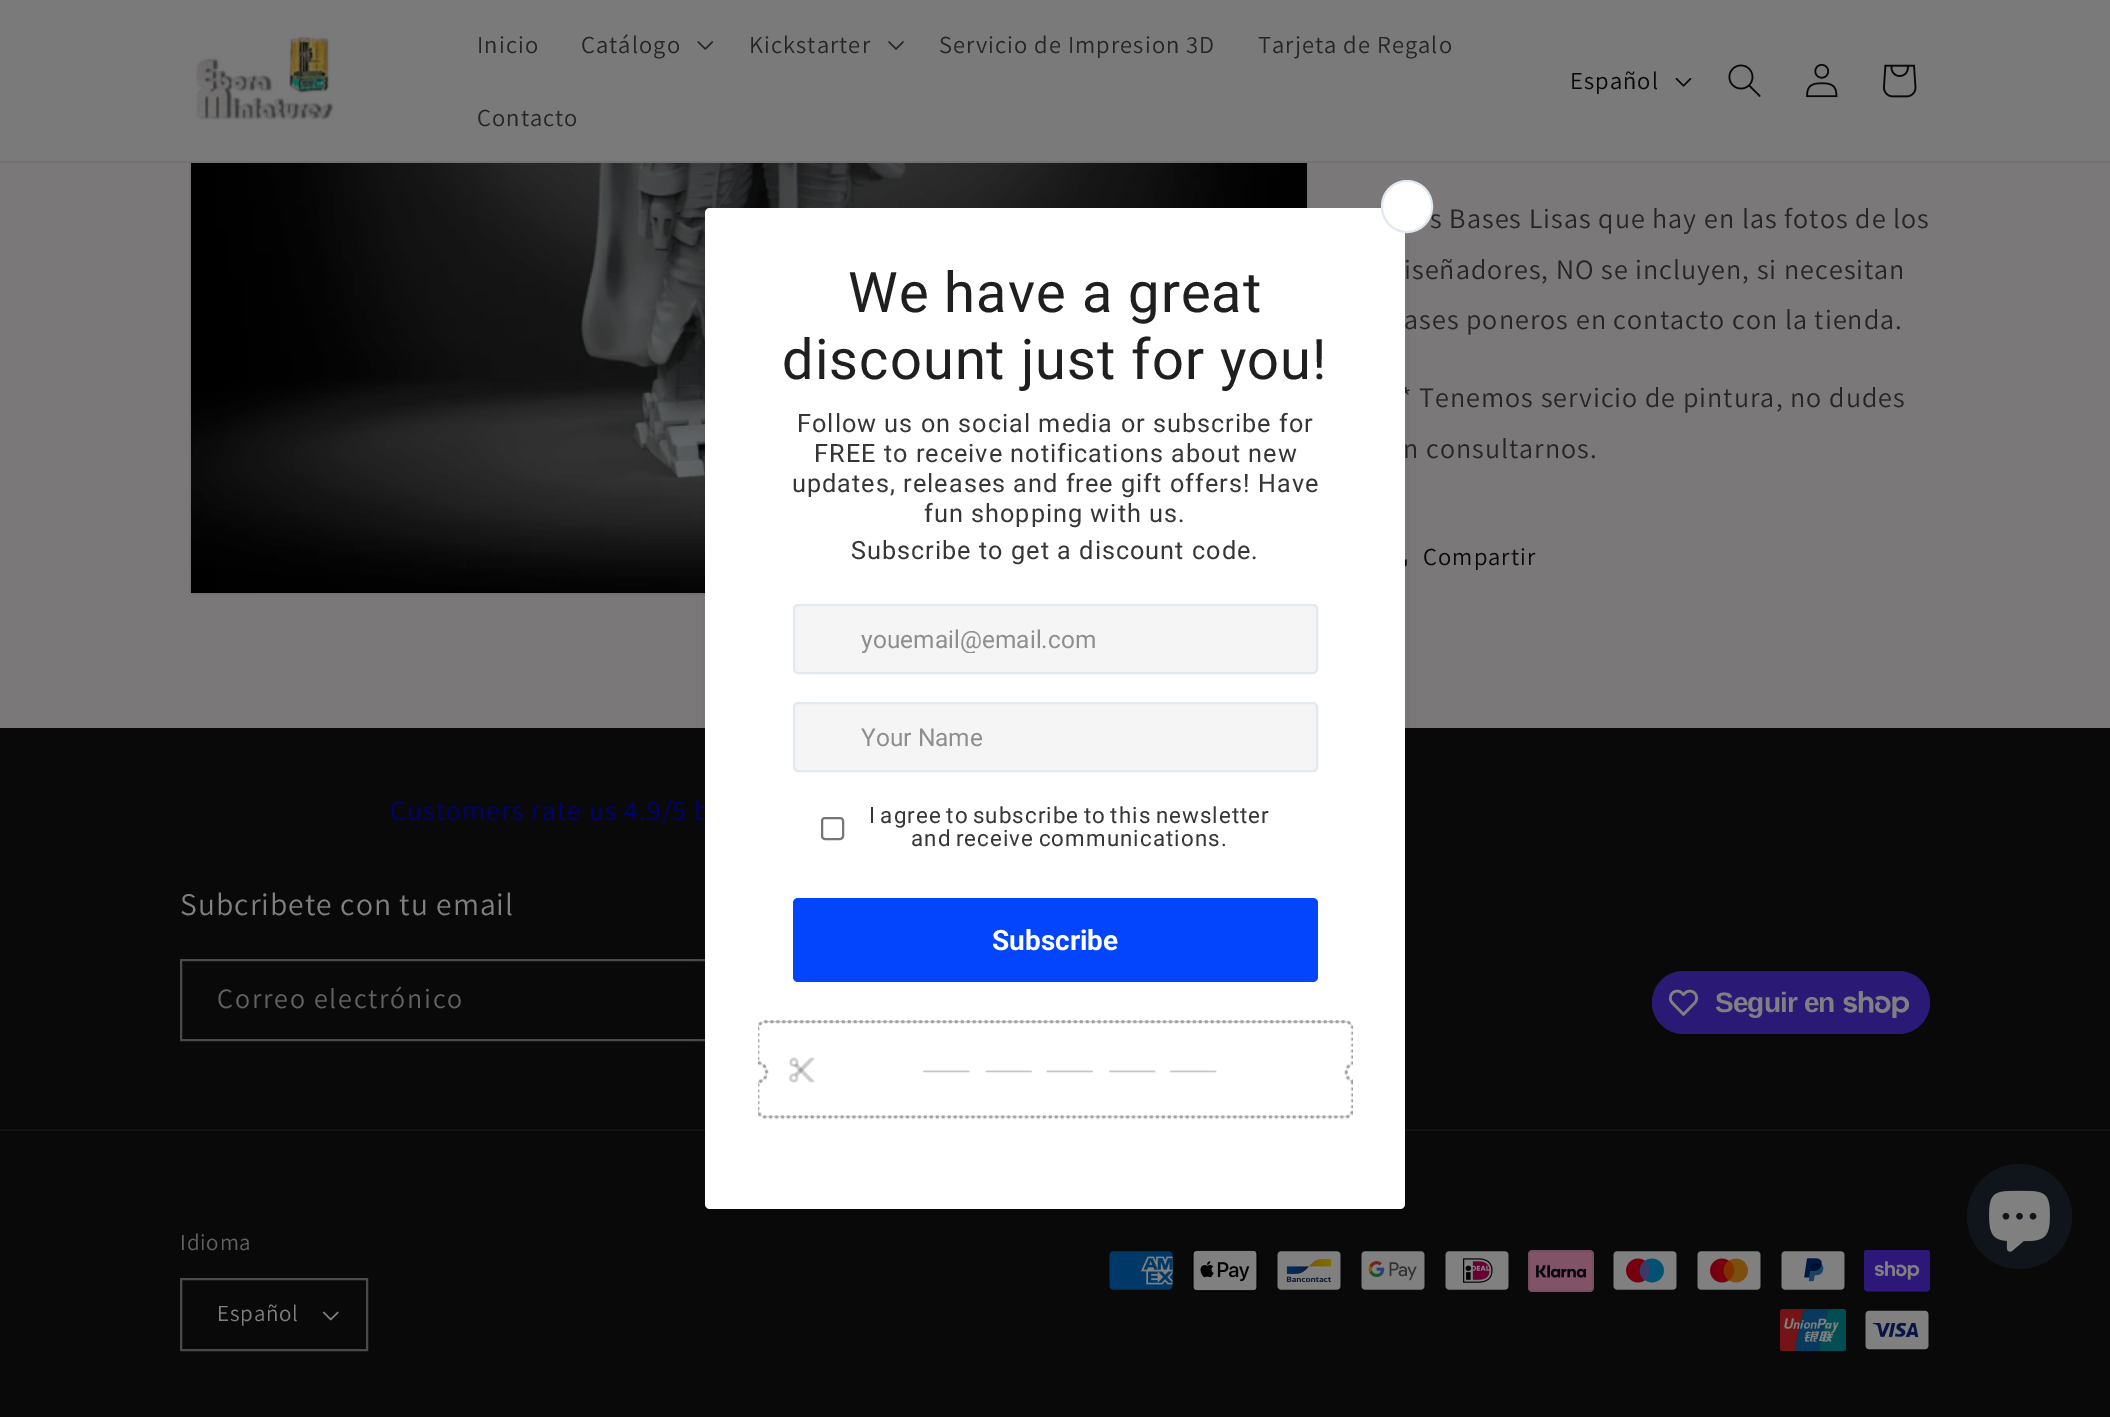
%!PS-Adobe-3.0
%%BoundingBox: 0 0 2110 1417
%%LanguageLevel: 3
%%Pages: 1
%%EndComments
%%BeginProlog
/setink { 3 { 255 div 3 1 roll } repeat setrgbcolor } def
/usefont { [ exch dup neg 0 0 3 -1 roll 0 0 ] selectfont } def
/drawtext { setink usefont moveto show } def
/fillbox { setink rectfill } def
/setalpha { dup .setfillconstantalpha .setstrokeconstantalpha } def
/disc { newpath 0 360 arc closepath } def
/rrect { 5 dict begin { /r /h /w /y /x } { exch def } forall
  x r add y moveto x w add y 2 copy h add r arct x w add y h add x 1 index r arct
  x y h add x y r arct x y 2 copy exch w add exch r arct closepath end } def
/softshadow { 12 dict begin { /a /b /q /h /w /y /x } { exch def } forall gsave /was 0 def
  9 -2 -9 { dup b mul 4 div /e exch def 1 sub .425 mul 2.718 exch exp 1 add a .99 .min exch div /now exch def
    1 1 now sub 1 was sub div sub setalpha /was now def
    w h .min e 2 mul add 0 gt { x e sub y e sub w e 2 mul add h e 2 mul add
      q e add b .6 mul add w h .min 2 div e add .min 0 .max rrect fill } if } for grestore end } def
/drawimage { 5 dict begin { /h /w /y /x /name } { exch def } forall
  gsave x y translate w h scale
  w h 8 [w 0 0 h 0 0] name (r) file false 3 colorimage grestore end } def
%%EndProlog
%%BeginSetup
<< /PageSize [2110 1417] /PageUsesTransparency true >> setpagedevice
%%EndSetup
%%Page: 1 1
0 .pushpdf14devicefilter
0 1417 translate 1 -1 scale
4 setmiterlimit
0 0 2110 1417 255 255 255 fillbox
gsave 0 163 moveto 2110 163 lineto 2110 728 lineto 0 728 lineto closepath clip newpath
<< /ShadingType 2 /ColorSpace /DeviceRGB /Coords [1055 0 1055 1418] /Extend [true true] /Function << /FunctionType 3 /Domain [0 1] /Functions [<< /FunctionType 2 /Domain [0 1] /C0 [0.478 0.471 0.471] /C1 [0.478 0.471 0.471] /N 1 >> << /FunctionType 2 /Domain [0 1] /C0 [0.478 0.471 0.471] /C1 [0.212 0.204 0.204] /N 1 >>] /Bounds [0.67] /Encode [0 1 0 1] >> >> shfill grestore
117 115 115 setink
2 setlinewidth
190 -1 1118 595 rectstroke
0 0 2110 161 122 122 122 fillbox
0 161 2110 2 113 113 113 fillbox
(assets/img1.rgb) 196 36 138 84 drawimage
/Assistant-Regular 24.5 usefont
38 37 37 setink
477 53 moveto 1.05 0 (Inicio) ashow
581 53 moveto 1.05 0 (Catálogo) ashow
(assets/img2.rgb) 697 41 16 9 drawimage
749 53 moveto 1.05 0 (Kickstarter) ashow
(assets/img3.rgb) 888 41 16 9 drawimage
939 53 moveto 1.05 0 (Servicio de Impresion 3D) ashow
1258 53 moveto 1.05 0 (Tarjeta de Regalo) ashow
477 126 moveto 1.05 0 (Contacto) ashow
9 9 9 setink
1570 89 moveto 1.05 0 (Español) ashow
(assets/img4.rgb) 1675 77 17 10 drawimage
(assets/img5.rgb) 1728 64 33 33 drawimage
(assets/img6.rgb) 1806 63 32 35 drawimage
(assets/img7.rgb) 1883 64 34 34 drawimage
(assets/img9.rgb) 191 163 1116 430 drawimage
(assets/img10.rgb) 1405 559 2 8 drawimage
0 728 2110 689 9 9 9 fillbox
74 74 74 setink
181 960 628 80 rectstroke
0 1129 2110 2 19 19 19 fillbox
(assets/img14.rgb) 1109 1251 64 39 drawimage
(assets/img15.rgb) 1192 1250 66 42 drawimage
(assets/img16.rgb) 1277 1251 64 39 drawimage
(assets/img17.rgb) 1361 1251 64 39 drawimage
0 0 0 setink
711 231 689 991 0 13 0.1 softshadow
/Assistant-Regular 28 usefont
38 37 37 setink
1400 407 moveto 1.05 0 (* Tenemos servicio de pintura, no dudes) ashow
1403 458 moveto 1.05 0 (n consultarnos.) ashow
0 0 119 setink
390 820 moveto 1.05 0 (Customers rate us 4.9/5 b) ashow
255 255 255 setink
705 208 700 1001 5 rrect fill
38 37 37 setink
1430 228 moveto 1.05 0 (s Bases Lisas que hay en las fotos de los) ashow
255 255 255 setink
1382 181 50 51 25 rrect gsave fill grestore
226 232 240 setink
stroke
/Roboto-Regular 56 usefont
31 31 31 setink
848 312 moveto 1.05 0 (We have a great) ashow
782 379 moveto 1.05 0 (discount just for you!) ashow
/Roboto-Regular 25.2 usefont
54 54 54 setink
797 432 moveto 1.05 0 (Follow us on social media or subscribe for) ashow
814 462 moveto 1.05 0 (FREE to receive notifications about new) ashow
792 492 moveto 1.05 0 (updates, releases and free gift offers! Have) ashow
924 522 moveto 1.05 0 (fun shopping with us.) ashow
851 559 moveto 1.05 0 (Subscribe to get a discount code.) ashow
245 245 245 setink
794 605 523 68 4 rrect gsave fill grestore
226 232 240 setink
stroke
gsave
798 625 515 28 rectclip
(youemail@email.com) 861 648 /Roboto-Regular 24.5 142 142 142 drawtext
grestore
245 245 245 setink
794 703 523 68 4 rrect gsave fill grestore
226 232 240 setink
stroke
(Your Name) 861 746 /Roboto-Regular 24.5 142 142 142 drawtext
118 118 118 setink
822 818 21 21 3 rrect stroke
/Roboto-Regular 22.4 usefont
54 54 54 setink
869 823 moveto -2.25 0 32 1.05 0 (I agree to subscribe to this newsletter) awidthshow
911 846 moveto -2.25 0 32 1.05 0 (and receive communications.) awidthshow
3 69 252 setink
793 898 525 84 5 rrect fill
(Subscribe) 992 950 /Roboto-Bold 28 255 255 255 drawtext
(assets/img8.rgb) 758 1020 595 100 drawimage
/Assistant-Regular 28 usefont
38 37 37 setink
1404 279 moveto 1.05 0 (iseñadores, NO se incluyen, si necesitan) ashow
1404 329 moveto 1.05 0 (ases poneros en contacto con la tienda.) ashow
/Assistant-Regular 24.5 usefont
9 9 9 setink
1423 565 moveto 1.05 0 (Compartir) ashow
/Assistant-Regular 31.5 usefont
128 128 128 setink
180 915 moveto 1.05 0 (Subcribete con tu email) ashow
/Assistant-Regular 28 usefont
98 98 98 setink
217 1008 moveto 1.75 0 (Correo electrónico) ashow
42 26 118 setink
1652 971 278 63 31.5 rrect fill
(assets/img11.rgb) 1668 989 31 27 drawimage
/LiberationSans-Bold 28 usefont
128 128 128 setink
1715 1012 moveto -0.9 0 (Seguir en) ashow
(assets/img12.rgb) 1843 991 66 27 drawimage
/Assistant-Regular 23 usefont
98 98 98 setink
180 1250 moveto 0.75 0 (Idioma) ashow
(assets/img13.rgb) 322 1311 17 10 drawimage
74 74 74 setink
181 1279 186 71 rectstroke
128 128 128 setink
217 1321 moveto 0.75 0 (Español) ashow
(assets/img18.rgb) 1445 1251 64 39 drawimage
(assets/img19.rgb) 1528 1250 66 42 drawimage
(assets/img20.rgb) 1613 1251 64 39 drawimage
(assets/img21.rgb) 1697 1251 64 39 drawimage
(assets/img22.rgb) 1781 1251 64 39 drawimage
(assets/img23.rgb) 1864 1250 66 42 drawimage
(assets/img24.rgb) 1780 1309 66 42 drawimage
(assets/img25.rgb) 1865 1310 64 40 drawimage
16 21 27 setink
2019.5 1216.5 52.5 disc fill
(assets/img26.rgb) 1989 1190 61 62 drawimage
.poppdf14devicefilter showpage
%%EOF
